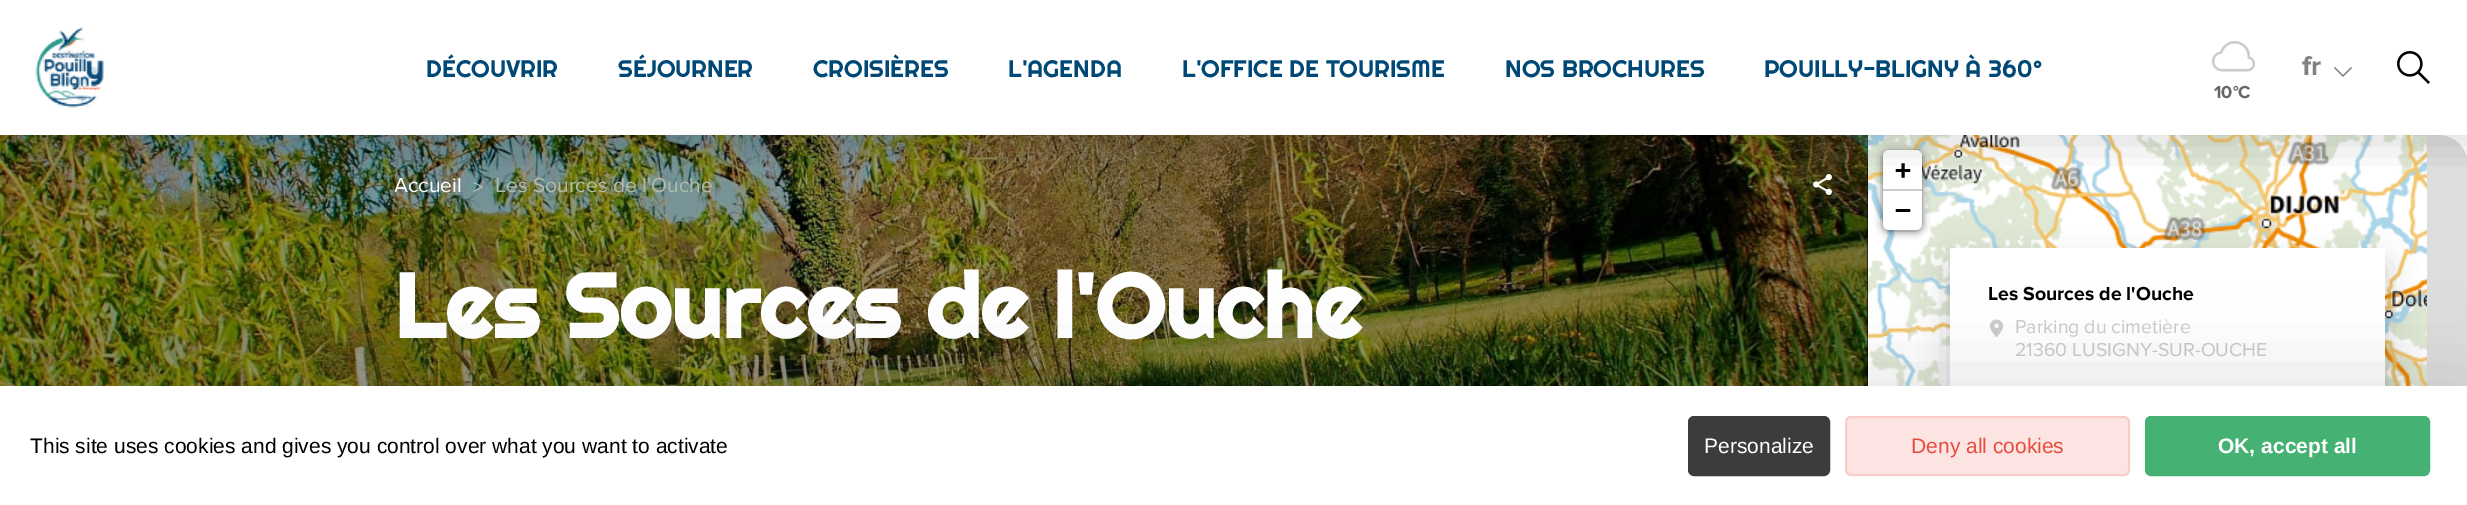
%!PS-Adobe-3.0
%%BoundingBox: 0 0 2467 505
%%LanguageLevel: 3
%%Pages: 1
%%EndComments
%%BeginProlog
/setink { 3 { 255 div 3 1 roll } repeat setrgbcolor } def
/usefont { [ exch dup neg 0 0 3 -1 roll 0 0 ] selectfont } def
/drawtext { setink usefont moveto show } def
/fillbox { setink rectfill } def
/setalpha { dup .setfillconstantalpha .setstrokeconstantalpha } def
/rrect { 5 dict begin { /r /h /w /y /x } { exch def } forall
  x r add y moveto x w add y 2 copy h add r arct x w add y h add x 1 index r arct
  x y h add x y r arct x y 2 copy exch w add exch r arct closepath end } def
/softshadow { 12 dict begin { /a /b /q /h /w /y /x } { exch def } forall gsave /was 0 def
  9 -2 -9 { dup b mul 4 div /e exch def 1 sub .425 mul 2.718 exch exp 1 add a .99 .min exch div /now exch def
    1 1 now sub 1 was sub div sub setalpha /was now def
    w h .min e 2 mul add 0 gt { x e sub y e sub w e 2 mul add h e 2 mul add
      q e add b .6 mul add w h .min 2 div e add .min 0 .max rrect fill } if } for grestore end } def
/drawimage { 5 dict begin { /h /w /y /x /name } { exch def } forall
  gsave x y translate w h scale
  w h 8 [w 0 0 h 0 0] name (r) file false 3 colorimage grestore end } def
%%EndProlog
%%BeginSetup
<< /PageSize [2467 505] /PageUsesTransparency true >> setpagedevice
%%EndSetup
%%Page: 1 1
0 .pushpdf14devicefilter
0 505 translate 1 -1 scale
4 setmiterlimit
0 0 2467 505 255 255 255 fillbox
1838 135 30 30 0 73 118 fillbox
0 0 0 setink
0 135 moveto 1838 135 lineto 1854.5 135 1868 148.5 1868 165 curveto 1868 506 lineto 30 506 lineto 13.5 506 0 492.5 0 476 curveto closepath fill
(assets/img4.rgb) 0 135 1868 251 drawimage
(assets/img5.rgb) 1813 174 19 21 drawimage
221 221 221 setink
1868 135 moveto 2438 135 lineto 2454.5 135 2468 148.5 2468 165 curveto 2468 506 lineto 1898 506 lineto 1881.5 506 1868 492.5 1868 476 curveto closepath fill
(assets/img6.rgb) 1868 135 175 201 drawimage
(assets/img7.rgb) 2043 135 384 201 drawimage
0 0 0 setink
1883 152 39 79 6 4 0.65 softshadow
255 255 255 setink
1889 150 moveto 1916 150 lineto 1919.5 150 1922 152.5 1922 156 curveto 1922 191 lineto 1883 191 lineto 1883 156 lineto 1883 152.5 1885.5 150 1889 150 curveto closepath fill
1883 189 39 2 204 204 204 fillbox
255 255 255 setink
1883 191 moveto 1922 191 lineto 1922 224 lineto 1922 227.5 1919.5 230 1916 230 curveto 1889 230 lineto 1885.5 230 1883 227.5 1883 224 curveto closepath fill
gsave
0 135 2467 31 rectclip
0 0 0 setink
-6 -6 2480 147 0 22.5 0.15 softshadow
grestore
(assets/img1.rgb) 33 27 71 81 drawimage
(DÉCOUVRIR) 426 77 /Righteous-Regular 24 0 73 118 drawtext
(SÉJOURNER) 618 77 /Righteous-Regular 24 0 73 118 drawtext
(CROISIÈRES) 813 77 /Righteous-Regular 24 0 73 118 drawtext
(L'AGENDA) 1008 77 /Righteous-Regular 24 0 73 118 drawtext
(L'OFFICE DE TOURISME) 1182 77 /Righteous-Regular 24 0 73 118 drawtext
(NOS BROCHURES) 1505 77 /Righteous-Regular 24 0 73 118 drawtext
(POUILLY-BLIGNY À 360°) 1764 77 /Righteous-Regular 24 0 73 118 drawtext
(fr) 2302 75 /ProximaNova-Bold 28 128 128 128 drawtext
2335 67 moveto 2334 68 lineto 2343 77 lineto 2352 68 lineto 2351 67 lineto 2343 75 lineto closepath fill
(assets/img2.rgb) 2397 51 33 33 drawimage
(assets/img3.rgb) 2211 41 45 31 drawimage
(10°C) 2214 98 /ProximaNova-Bold 18 102 102 102 drawtext
gsave
395 135 1473 105 rectclip
(Accueil) 394 192 /ProximaNova-Regular 21 255 255 255 drawtext
grestore
(>) 473 194 /ProximaNova-Regular 21 178 193 195 drawtext
(Les Sources de l'Ouche) 495 192 /ProximaNova-Regular 21 178 188 172 drawtext
(Les Sources de l'Ouche) 394 338 /Righteous-Bold 90 255 255 255 drawtext
(assets/img8.rgb) 1868 336 82 50 drawimage
(assets/img9.rgb) 2385 336 42 50 drawimage
(+) 1895 179 /DejaVuSansMono-Bold 27 0 0 0 drawtext
(−) 1895 219 /DejaVuSansMono-Bold 27 0 0 0 drawtext
1950 263 435 213 0 15 0.2 softshadow
1950 248 435 138 255 255 255 fillbox
(Les Sources de l'Ouche) 1988 300 /ProximaNova-Bold 19.5 0 0 0 drawtext
(assets/img10.rgb) 1989 319 15 19 drawimage
(Parking du cimetière) 2015 333 /ProximaNova-Regular 19.5 204 204 204 drawtext
(21360 LUSIGNY-SUR-OUCHE) 2015 356 /ProximaNova-Regular 19.5 204 204 204 drawtext
0 0 0 setink
0 371 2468 120 0 37.5 0.1 softshadow
0 386 2467 119 255 255 255 fillbox
(This site uses cookies and gives you control over what you want to activate) 30 453 /LiberationSans-Regular 21 0 0 0 drawtext
60 60 60 setink
1689 417 140 58 5 rrect gsave fill grestore
2 setlinewidth
stroke
(Personalize) 1704 453 /LiberationSans-Regular 21 255 255 255 drawtext
251 228 226 setink
1845 416 285 60 6 rrect fill
0.15 setalpha
231 76 60 setink
1846 417 283 58 5 rrect stroke
1 setalpha
(Deny all cookies) 1911 453 /LiberationSans-Regular 21 231 76 60 drawtext
69 177 114 setink
2146 417 283 58 5 rrect gsave fill grestore
stroke
(OK, accept all) 2218 453 /LiberationSans-Bold 21 255 255 255 drawtext
.poppdf14devicefilter showpage
%%EOF
